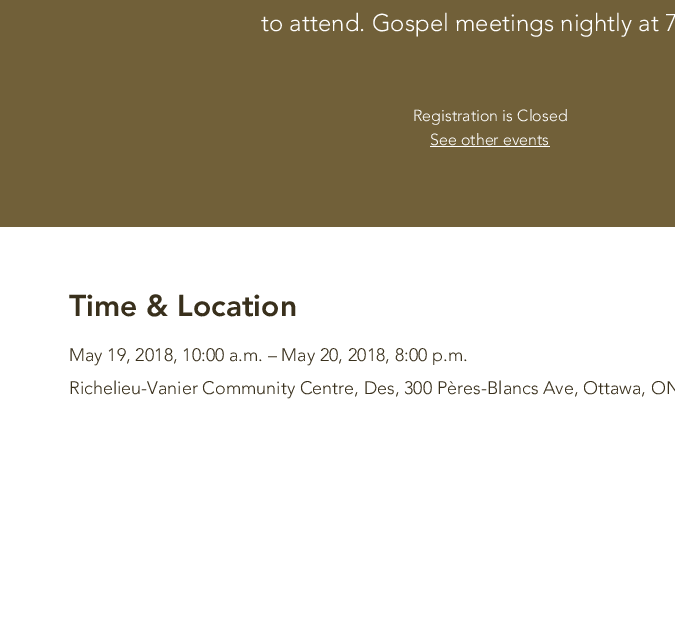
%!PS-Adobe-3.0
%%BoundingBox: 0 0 675 621
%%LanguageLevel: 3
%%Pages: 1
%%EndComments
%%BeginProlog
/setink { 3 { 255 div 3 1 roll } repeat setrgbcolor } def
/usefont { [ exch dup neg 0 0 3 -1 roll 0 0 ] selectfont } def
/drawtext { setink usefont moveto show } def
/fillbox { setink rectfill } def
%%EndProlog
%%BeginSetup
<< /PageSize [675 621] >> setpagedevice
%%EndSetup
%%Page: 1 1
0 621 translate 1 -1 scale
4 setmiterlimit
0 0 675 621 255 255 255 fillbox
0 0 675 227 113 96 57 fillbox
(to attend. Gospel meetings nightly at 7) 261 31 /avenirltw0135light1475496-Light 24 255 255 255 drawtext
(Registration is Closed) 413 121 /avenirltw0135light1475496-Light 16 255 255 255 drawtext
(See other events) 430 145 /avenirltw0135light1475496-Light 16 255 255 255 drawtext
430 146 120 1 255 255 255 fillbox
(Time & Location) 69 316 /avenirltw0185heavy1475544-Black 30 57 48 28 drawtext
(May 19, 2018, 10:00 a.m. – May 20, 2018, 8:00 p.m.) 69 361 /avenirltw0135light1475496-Light 18 57 48 28 drawtext
(Richelieu-Vanier Community Centre, Des, 300 Pères-Blancs Ave, Ottawa, ON) 69 394 /avenirltw0135light1475496-Light 18 57 48 28 drawtext
showpage
%%EOF
